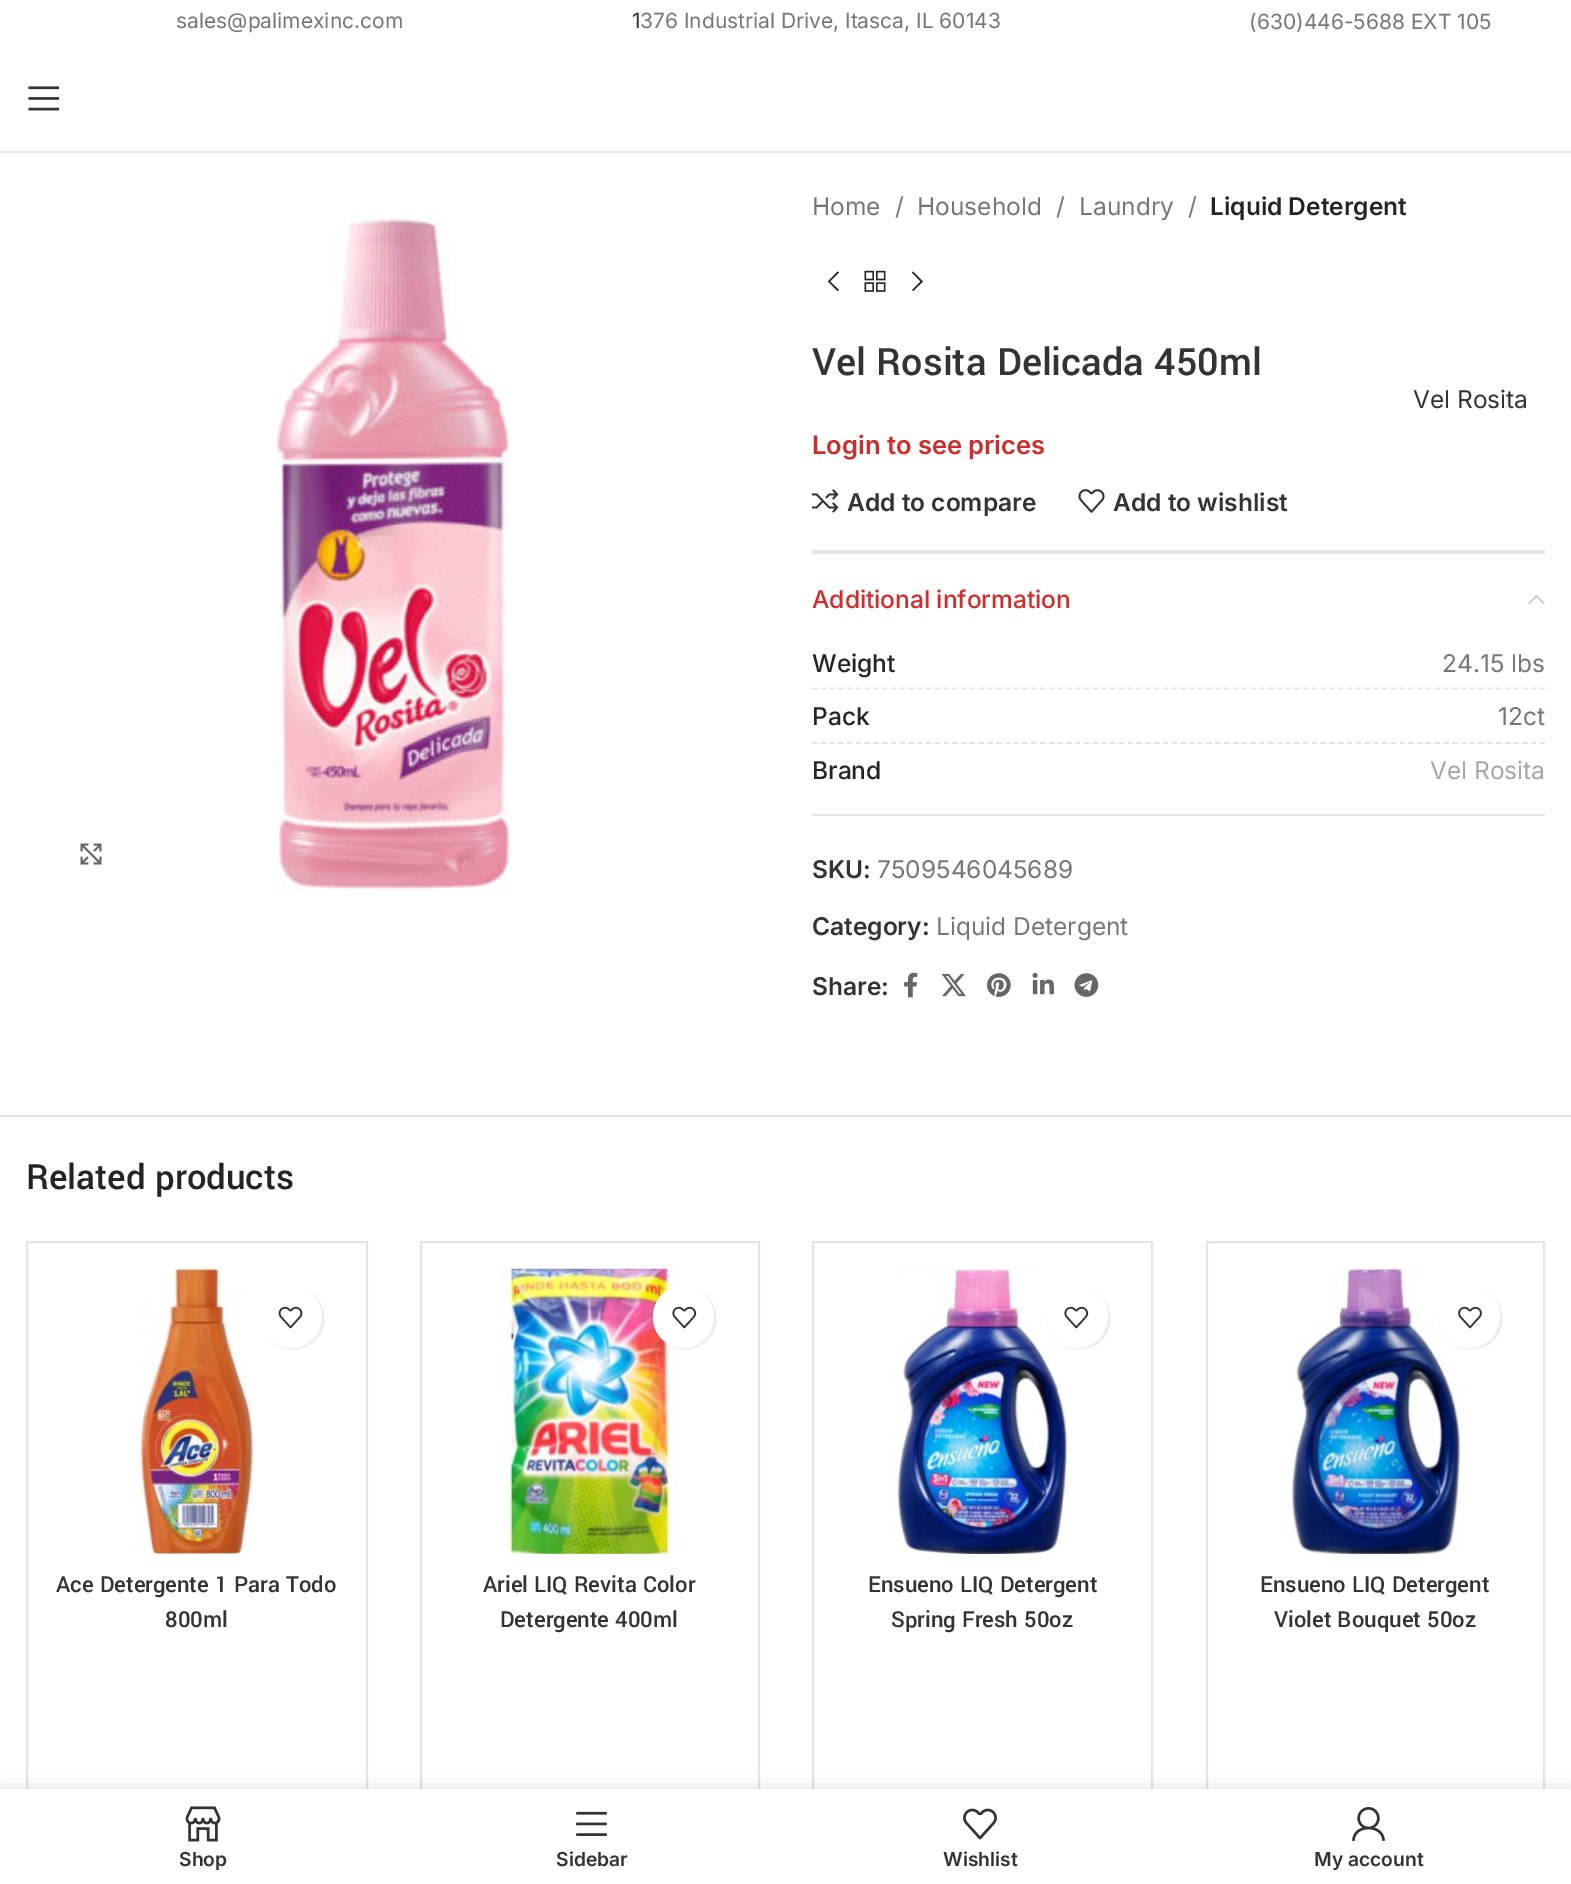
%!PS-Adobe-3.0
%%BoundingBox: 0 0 1571 1884
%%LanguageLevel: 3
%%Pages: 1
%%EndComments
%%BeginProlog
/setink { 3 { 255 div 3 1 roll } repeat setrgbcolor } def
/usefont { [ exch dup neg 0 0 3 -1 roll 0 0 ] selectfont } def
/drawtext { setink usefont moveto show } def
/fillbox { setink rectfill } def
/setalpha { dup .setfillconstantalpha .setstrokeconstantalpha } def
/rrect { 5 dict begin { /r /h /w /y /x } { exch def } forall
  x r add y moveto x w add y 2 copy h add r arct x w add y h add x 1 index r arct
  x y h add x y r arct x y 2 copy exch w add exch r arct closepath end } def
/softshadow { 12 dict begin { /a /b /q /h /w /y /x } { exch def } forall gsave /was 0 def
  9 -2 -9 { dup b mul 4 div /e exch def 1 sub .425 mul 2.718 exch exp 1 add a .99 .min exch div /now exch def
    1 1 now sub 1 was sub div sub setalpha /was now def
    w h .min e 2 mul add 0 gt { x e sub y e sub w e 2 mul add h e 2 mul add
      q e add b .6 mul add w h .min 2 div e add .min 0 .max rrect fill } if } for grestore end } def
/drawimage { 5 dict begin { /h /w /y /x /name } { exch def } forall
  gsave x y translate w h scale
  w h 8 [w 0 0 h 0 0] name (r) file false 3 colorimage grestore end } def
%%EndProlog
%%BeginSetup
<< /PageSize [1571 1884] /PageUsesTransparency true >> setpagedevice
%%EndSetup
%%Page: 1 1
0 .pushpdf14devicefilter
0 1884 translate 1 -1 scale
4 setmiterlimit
0 0 1571 1884 255 255 255 fillbox
(sales@palimexinc.com) 176 28 /Inter-Regular 21 118 118 118 drawtext
(1) 632 28 /Inter-Regular 21 51 51 51 drawtext
(376 Industrial Drive, Itasca, IL 60143) 640 28 /Inter-Regular 21 118 118 118 drawtext
(\(630\)446-5688 EXT 105) 1249 29 /Inter-Regular 21 118 118 118 drawtext
0 151 1571 2 232 232 232 fillbox
(assets/img1.rgb) 28 86 32 25 drawimage
(assets/img2.rgb) 80 843 22 22 drawimage
(assets/img3.rgb) 275 217 236 674 drawimage
(Home) 812 215 /Inter-Regular 24.5 118 118 118 drawtext
(/) 895 215 /Inter-Regular 24.5 118 118 118 drawtext
(Household) 917 215 /Inter-Regular 24.5 118 118 118 drawtext
(/) 1056 215 /Inter-Regular 24.5 118 118 118 drawtext
(Laundry) 1079 215 /Inter-Regular 24.5 118 118 118 drawtext
(/) 1188 215 /Inter-Regular 24.5 118 118 118 drawtext
(Liquid Detergent) 1210 215 /Inter-SemiBold 24.5 36 36 36 drawtext
839 272.5 moveto 837.5 271.5 lineto 828 281.5 lineto 837.5 291 lineto 839 290 lineto 830 281.5 lineto closepath fill
(assets/img4.rgb) 864 270 22 22 drawimage
912 272.5 moveto 920.5 281.5 lineto 912 290 lineto 913 291 lineto 923 281.5 lineto 913 271.5 lineto closepath fill
(Vel Rosita Delicada 450ml) 812 375 /Yantramanav-Medium 42 51 51 51 drawtext
(Vel Rosita) 1413 408 /Inter-Regular 24.5 51 51 51 drawtext
(Login to see prices) 812 454 /Inter-SemiBold 25.5 209 44 44 drawtext
(assets/img5.rgb) 812 489 27 24 drawimage
(Add to compare) 847 511 /Inter-SemiBold 24.5 51 51 51 drawtext
(assets/img6.rgb) 1078 489 27 24 drawimage
(Add to wishlist) 1113 511 /Inter-SemiBold 24.5 51 51 51 drawtext
812 550 733 4 228 228 228 fillbox
812 814 733 2 228 228 228 fillbox
(Additional information) 812 608 /Inter-Medium 24.5 209 44 44 drawtext
(assets/img7.rgb) 1528 595 17 9 drawimage
228 228 228 setink
1.8 setlinewidth
[5.25 3.52] 0 setdash
812 688.5 moveto 1545 688.5 lineto stroke
(Weight) 812 672 /Inter-Medium 24.5 36 36 36 drawtext
(24.15 lbs) 1442 672 /Inter-Regular 24.5 118 118 118 drawtext
228 228 228 setink
812 743 moveto 1545 743 lineto stroke
(Pack) 812 725 /Inter-Medium 24.5 36 36 36 drawtext
(12ct) 1498 725 /Inter-Regular 24.5 118 118 118 drawtext
(Brand) 812 779 /Inter-Medium 24.5 36 36 36 drawtext
(Vel Rosita) 1430 779 /Inter-Regular 24.5 165 165 165 drawtext
(SKU:) 812 878 /Inter-SemiBold 24.5 51 51 51 drawtext
(7509546045689) 877 878 /Inter-Regular 24.5 118 118 118 drawtext
(Category:) 812 935 /Inter-SemiBold 24.5 51 51 51 drawtext
(Liquid Detergent) 936 935 /Inter-Regular 24.5 118 118 118 drawtext
(Share:) 812 995 /Inter-SemiBold 24.5 51 51 51 drawtext
(assets/img8.rgb) 904 972 14 26 drawimage
(assets/img9.rgb) 941 973 25 24 drawimage
(assets/img10.rgb) 987 973 24 24 drawimage
(assets/img11.rgb) 1032 972 22 23 drawimage
(assets/img12.rgb) 1074 973 25 24 drawimage
0 1115 1571 2 228 228 228 fillbox
(Related products) 26 1189 /Yantramanav-Medium 38.5 36 36 36 drawtext
228 228 228 setink
2 setlinewidth
[] 0 setdash
27 1242 340 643 rectstroke
(assets/img13.rgb) 137 1268 117 286 drawimage
0 0 0 setink
263 1288 61 61 30.5 1 0.1 softshadow
255 255 255 setink
261 1286 61 62 30.5 rrect fill
(assets/img14.rgb) 278 1306 25 23 drawimage
(Ace Detergente 1 Para Todo) 56 1592 /Yantramanav-Medium 24.5 51 51 51 drawtext
(800ml) 165 1627 /Yantramanav-Medium 24.5 51 51 51 drawtext
228 228 228 setink
421 1242 338 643 rectstroke
(assets/img15.rgb) 497 1268 182 286 drawimage
0 0 0 setink
655 1288 61 61 30.5 1 0.1 softshadow
255 255 255 setink
653 1286 61 62 30.5 rrect fill
(assets/img16.rgb) 672 1306 25 23 drawimage
(Ariel LIQ Revita Color) 483 1592 /Yantramanav-Medium 24.5 51 51 51 drawtext
(Detergente 400ml) 500 1627 /Yantramanav-Medium 24.5 51 51 51 drawtext
228 228 228 setink
813 1242 339 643 rectstroke
(assets/img17.rgb) 890 1268 182 286 drawimage
0 0 0 setink
1048 1288 62 61 30.5 1 0.1 softshadow
255 255 255 setink
1047 1286 61 62 30.5 rrect fill
(assets/img16.rgb) 1064 1306 25 23 drawimage
(Ensueno LIQ Detergent) 868 1592 /Yantramanav-Medium 24.5 51 51 51 drawtext
(Spring Fresh 50oz) 891 1627 /Yantramanav-Medium 24.5 51 51 51 drawtext
228 228 228 setink
1207 1242 337 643 rectstroke
(assets/img18.rgb) 1290 1268 175 286 drawimage
0 0 0 setink
1440 1288 62 61 30.5 1 0.1 softshadow
255 255 255 setink
1439 1286 61 62 30.5 rrect fill
(assets/img19.rgb) 1458 1306 24 23 drawimage
(Ensueno LIQ Detergent) 1260 1592 /Yantramanav-Medium 24.5 51 51 51 drawtext
(Violet Bouquet 50oz) 1274 1627 /Yantramanav-Medium 24.5 51 51 51 drawtext
0 0 0 setink
0 1789 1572 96 0 8 0.12 softshadow
0 1789 1571 95 255 255 255 fillbox
(assets/img20.rgb) 185 1806 36 36 drawimage
(Shop) 179 1866 /Inter-SemiBold 19.25 51 51 51 drawtext
(assets/img21.rgb) 576 1811 31 25 drawimage
(Sidebar) 556 1866 /Inter-SemiBold 19.25 51 51 51 drawtext
(assets/img22.rgb) 963 1808 34 32 drawimage
(Wishlist) 943 1866 /Inter-SemiBold 19.25 51 51 51 drawtext
(assets/img23.rgb) 1352 1807 33 34 drawimage
(My account) 1314 1866 /Inter-SemiBold 19.25 51 51 51 drawtext
.poppdf14devicefilter showpage
%%EOF
